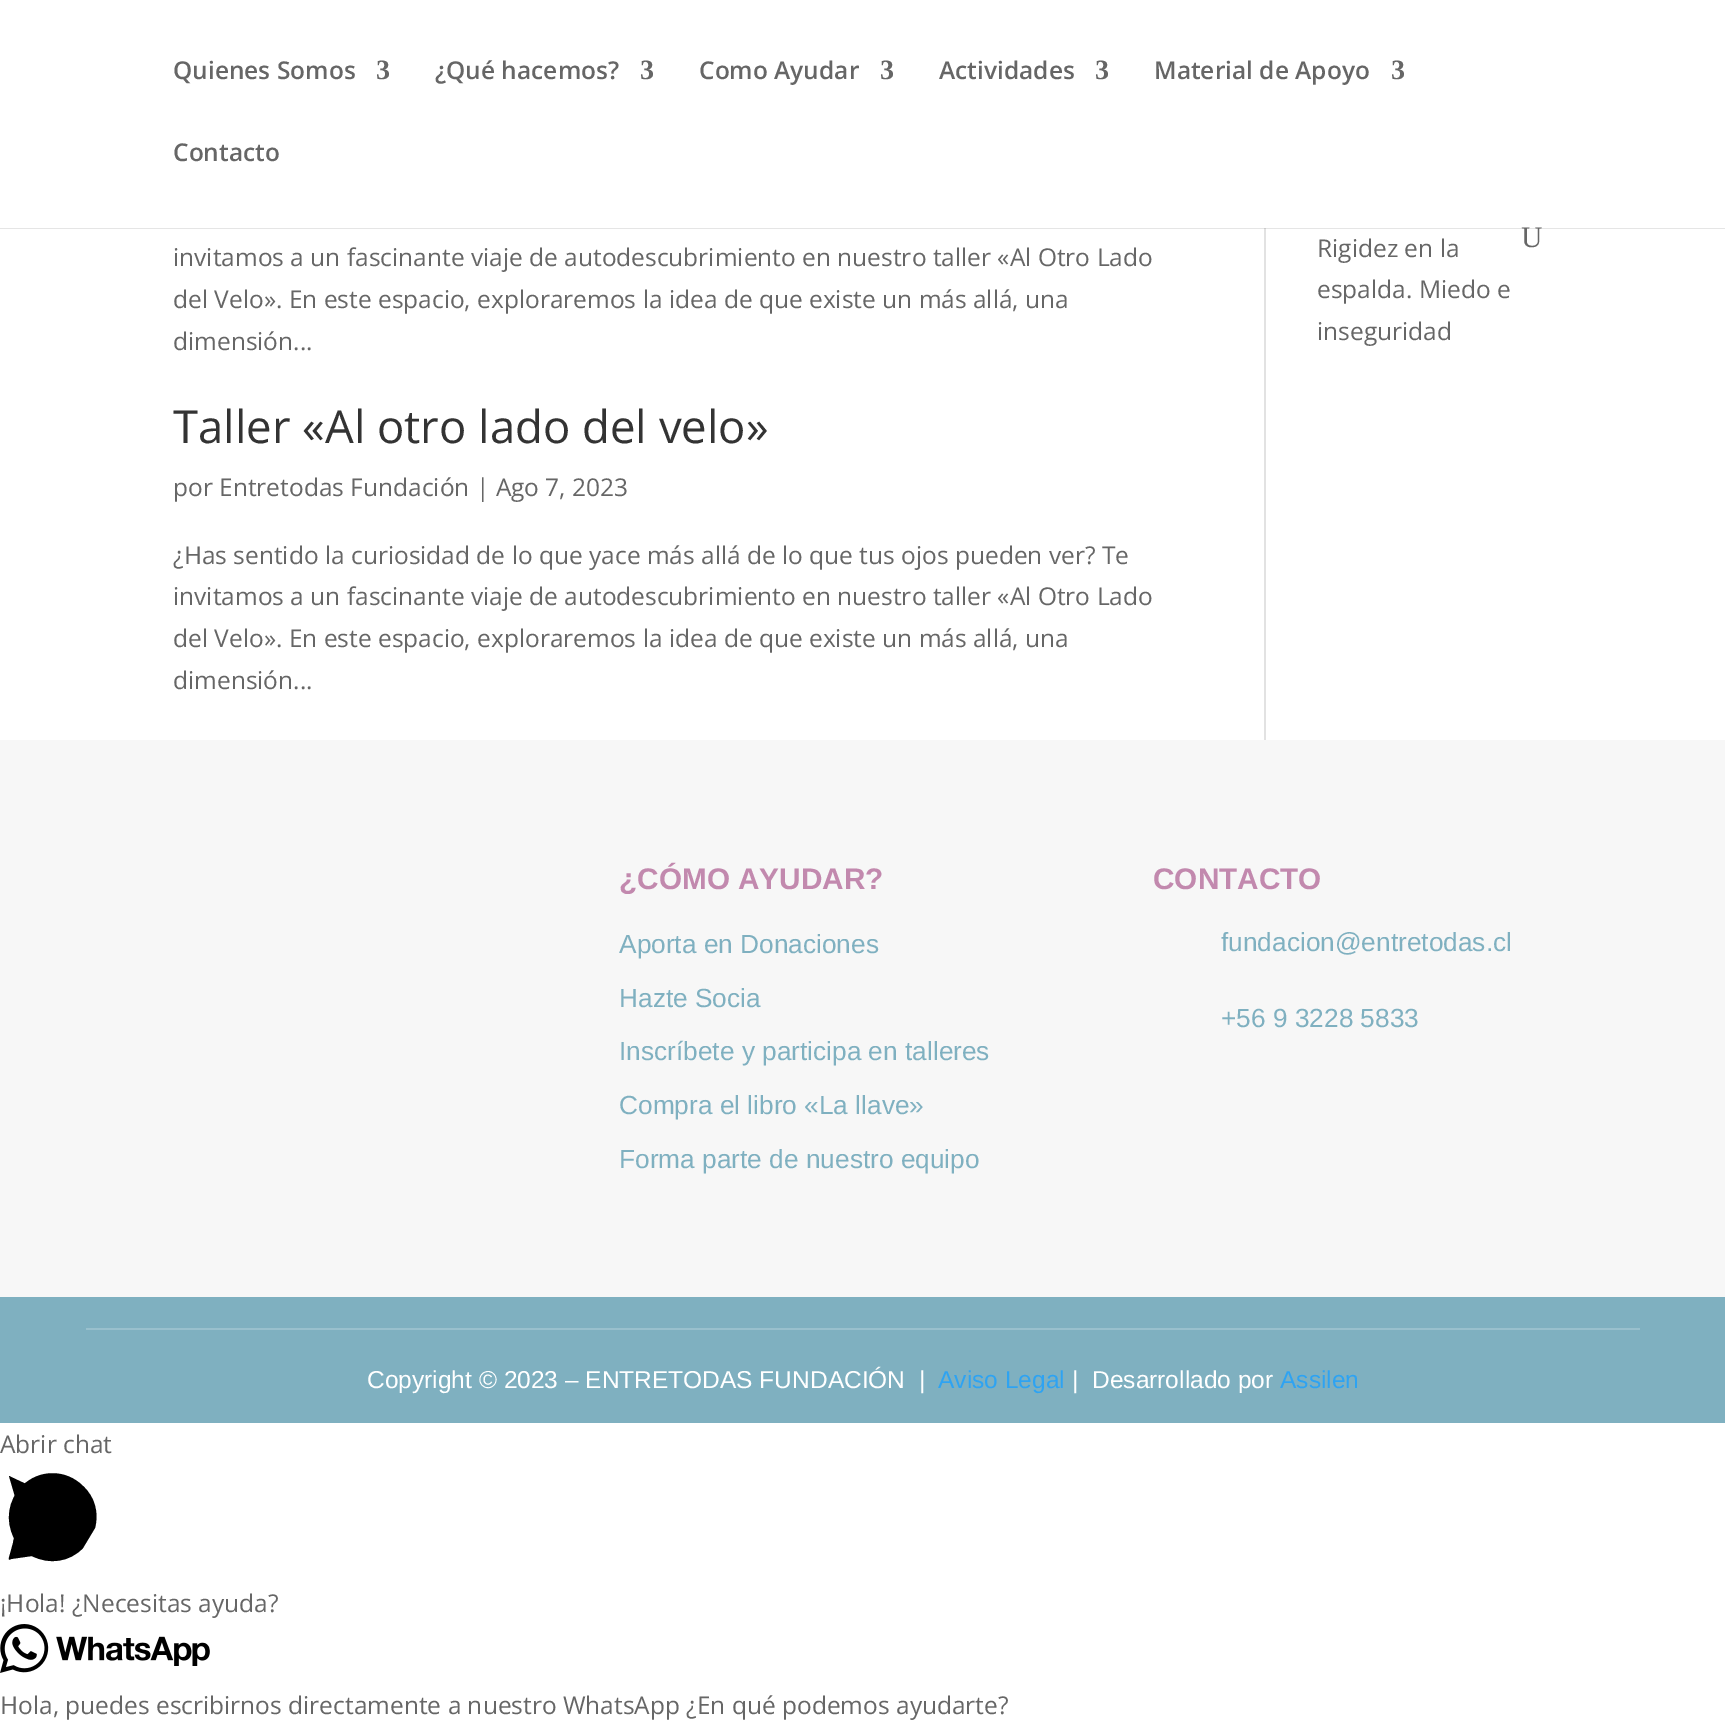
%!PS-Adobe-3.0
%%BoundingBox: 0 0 1725 1725
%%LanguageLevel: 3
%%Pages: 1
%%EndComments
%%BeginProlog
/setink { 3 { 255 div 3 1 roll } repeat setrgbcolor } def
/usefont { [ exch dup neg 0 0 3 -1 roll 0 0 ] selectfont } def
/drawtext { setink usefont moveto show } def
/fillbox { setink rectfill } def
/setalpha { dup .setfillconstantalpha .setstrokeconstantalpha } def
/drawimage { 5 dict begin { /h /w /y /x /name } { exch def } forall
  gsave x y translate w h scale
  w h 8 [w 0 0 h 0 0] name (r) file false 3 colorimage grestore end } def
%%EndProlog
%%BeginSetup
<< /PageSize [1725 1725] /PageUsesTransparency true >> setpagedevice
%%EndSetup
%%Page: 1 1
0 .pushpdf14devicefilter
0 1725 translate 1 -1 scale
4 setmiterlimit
0 0 1725 1725 255 255 255 fillbox
1264 228 2 512 226 226 226 fillbox
0.1 setalpha
0 0 0 setink
0 228 moveto 0 229 lineto 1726 229 lineto 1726 2 lineto 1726 228 lineto closepath fill
1 setalpha
(Quienes Somos) 173 79 /OpenSans-SemiBold 24.5 102 102 102 drawtext
(3) 376 79 /LiberationSerif-Bold 28 102 102 102 drawtext
(¿Qué hacemos?) 435 79 /OpenSans-SemiBold 24.5 102 102 102 drawtext
(3) 640 79 /LiberationSerif-Bold 28 102 102 102 drawtext
(Como Ayudar) 699 79 /OpenSans-SemiBold 24.5 102 102 102 drawtext
(3) 880 79 /LiberationSerif-Bold 28 102 102 102 drawtext
(Actividades) 939 79 /OpenSans-SemiBold 24.5 102 102 102 drawtext
(3) 1095 79 /LiberationSerif-Bold 28 102 102 102 drawtext
(Material de Apoyo) 1154 79 /OpenSans-SemiBold 24.5 102 102 102 drawtext
(3) 1391 79 /LiberationSerif-Bold 28 102 102 102 drawtext
(Contacto) 173 161 /OpenSans-SemiBold 24.5 102 102 102 drawtext
(U) 1521 247 /LiberationSerif-Regular 29.75 102 102 102 drawtext
(invitamos a un fascinante viaje de autodescubrimiento en nuestro taller «Al Otro Lado) 173 266 /OpenSans-Regular 24.5 102 102 102 drawtext
(del Velo». En este espacio, exploraremos la idea de que existe un más allá, una) 173 308 /OpenSans-Regular 24.5 102 102 102 drawtext
(dimensión...) 173 350 /OpenSans-Regular 24.5 102 102 102 drawtext
(Taller «Al otro lado del velo») 173 443 /OpenSans-Regular 45.5 51 51 51 drawtext
(por Entretodas Fundación | Ago 7, 2023) 173 496 /OpenSans-Regular 24.5 102 102 102 drawtext
(¿Has sentido la curiosidad de lo que yace más allá de lo que tus ojos pueden ver? Te) 173 564 /OpenSans-Regular 24.5 102 102 102 drawtext
(invitamos a un fascinante viaje de autodescubrimiento en nuestro taller «Al Otro Lado) 173 605 /OpenSans-Regular 24.5 102 102 102 drawtext
(del Velo». En este espacio, exploraremos la idea de que existe un más allá, una) 173 647 /OpenSans-Regular 24.5 102 102 102 drawtext
(dimensión...) 173 689 /OpenSans-Regular 24.5 102 102 102 drawtext
(Rigidez en la) 1317 257 /OpenSans-Regular 24.5 102 102 102 drawtext
(espalda. Miedo e) 1317 298 /OpenSans-Regular 24.5 102 102 102 drawtext
(inseguridad) 1317 340 /OpenSans-Regular 24.5 102 102 102 drawtext
0 740 1725 557 247 247 247 fillbox
(¿CÓMO AYUDAR?) 619 889 /LiberationSans-Bold 29.75 194 137 174 drawtext
(Aporta en Donaciones) 619 953 /LiberationSans-Regular 26.25 127 176 192 drawtext
(Hazte Socia) 619 1007 /LiberationSans-Regular 26.25 127 176 192 drawtext
(Inscríbete y participa en talleres) 619 1060 /LiberationSans-Regular 26.25 127 176 192 drawtext
(Compra el libro «La llave») 619 1114 /LiberationSans-Regular 26.25 127 176 192 drawtext
(Forma parte de nuestro equipo) 619 1168 /LiberationSans-Regular 26.25 127 176 192 drawtext
(CONTACTO) 1153 889 /LiberationSans-Bold 29.75 194 137 174 drawtext
(fundacion@entretodas.cl) 1221 951 /LiberationSans-Regular 26.25 127 176 192 drawtext
(+56 9 3228 5833) 1221 1027 /LiberationSans-Regular 26.25 127 176 192 drawtext
0 1297 1725 126 127 176 192 fillbox
86 1328 1554 2 153 192 205 fillbox
(Copyright © 2023 – ENTRETODAS FUNDACIÓN  |) 367 1388 /LiberationSans-Regular 24.5 255 255 255 drawtext
(Aviso Legal) 938 1388 /LiberationSans-Regular 24.5 46 163 242 drawtext
(|  Desarrollado por) 1072 1388 /LiberationSans-Regular 24.5 255 255 255 drawtext
(Assilen) 1280 1388 /LiberationSans-Regular 24.5 46 163 242 drawtext
(Abrir chat) 0 1453 /OpenSans-Regular 24.5 102 102 102 drawtext
0 0 0 setink
44 1517 moveto 21 1517 lineto 9 1476 lineto 96 1517 lineto 24 1552 lineto 9 1559 7 1564 10 1554 curveto 16 1532 lineto fill
83 1548 moveto 70 1562 49 1565 32 1556 curveto 11 1559 lineto 14 1538 lineto 5 1521 8 1500 22 1486 curveto 39 1469 66 1469 83 1486 curveto 95 1497 99 1513 95 1528 curveto fill
(¡Hola! ¿Necesitas ayuda?) 0 1612 /OpenSans-Regular 24.5 102 102 102 drawtext
(assets/img1.rgb) 0 1624 210 49 drawimage
(Hola, puedes escribirnos directamente a nuestro WhatsApp ¿En qué podemos ayudarte?) 0 1714 /OpenSans-Regular 24.5 102 102 102 drawtext
.poppdf14devicefilter showpage
%%EOF
